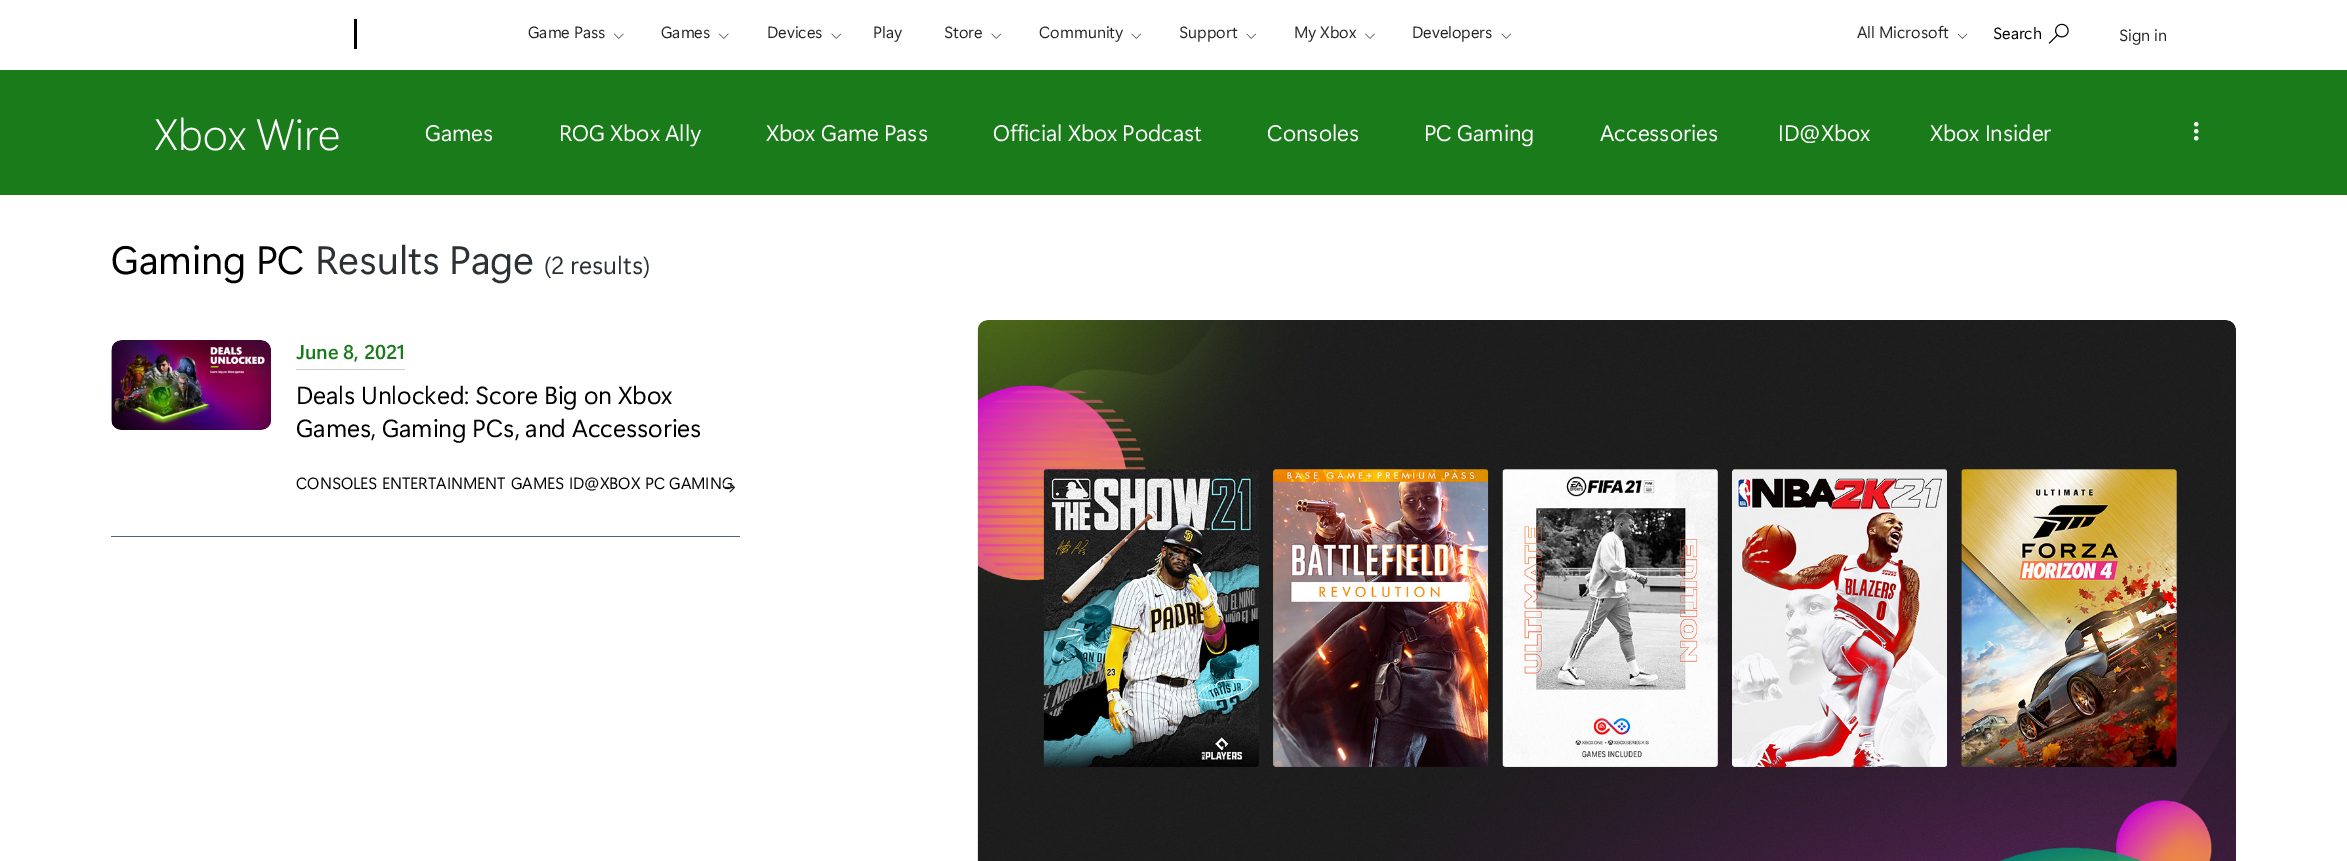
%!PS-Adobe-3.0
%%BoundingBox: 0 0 2347 861
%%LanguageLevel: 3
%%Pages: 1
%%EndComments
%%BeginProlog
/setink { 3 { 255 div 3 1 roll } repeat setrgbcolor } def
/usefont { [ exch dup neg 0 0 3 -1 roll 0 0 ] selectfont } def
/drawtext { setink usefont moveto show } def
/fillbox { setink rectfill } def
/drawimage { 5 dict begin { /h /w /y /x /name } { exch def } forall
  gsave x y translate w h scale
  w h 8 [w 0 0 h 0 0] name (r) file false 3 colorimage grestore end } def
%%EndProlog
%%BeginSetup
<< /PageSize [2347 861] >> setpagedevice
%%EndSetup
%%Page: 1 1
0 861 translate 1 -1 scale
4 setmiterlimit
0 0 2347 861 255 255 255 fillbox
354 19 3 30 0 0 0 fillbox
(Game Pass) 528 38 /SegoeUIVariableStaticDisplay-Regular 16.25 38 38 38 drawtext
(assets/img1.rgb) 614 33 10 6 drawimage
(Games) 661 38 /SegoeUIVariableStaticDisplay-Regular 16.25 38 38 38 drawtext
(assets/img1.rgb) 719 33 10 6 drawimage
(Devices) 767 38 /SegoeUIVariableStaticDisplay-Regular 16.25 38 38 38 drawtext
(assets/img2.rgb) 831 33 10 6 drawimage
(Play) 873 38 /SegoeUIVariableStaticDisplay-Regular 16.25 38 38 38 drawtext
(Store) 944 38 /SegoeUIVariableStaticDisplay-Regular 16.25 38 38 38 drawtext
(assets/img2.rgb) 991 33 10 6 drawimage
(Community) 1039 38 /SegoeUIVariableStaticDisplay-Regular 16.25 38 38 38 drawtext
(assets/img2.rgb) 1131 33 10 6 drawimage
(Support) 1179 38 /SegoeUIVariableStaticDisplay-Regular 16.25 38 38 38 drawtext
(assets/img2.rgb) 1246 33 10 6 drawimage
(My Xbox) 1294 38 /SegoeUIVariableStaticDisplay-Regular 16.25 38 38 38 drawtext
(assets/img3.rgb) 1365 33 10 6 drawimage
(Developers) 1412 38 /SegoeUIVariableStaticDisplay-Regular 16.25 38 38 38 drawtext
(assets/img2.rgb) 1501 33 10 6 drawimage
(All Microsoft) 1857 38 /SegoeUIVariableStaticDisplay-Regular 16.25 38 38 38 drawtext
(assets/img4.rgb) 1957 33 11 6 drawimage
(Search) 1993 39 /SegoeUIVariableStaticDisplay-Regular 16.25 0 0 0 drawtext
(assets/img5.rgb) 2048 23 21 21 drawimage
(Sign in) 2119 41 /SegoeUIVariableStaticDisplay-Regular 16.25 38 38 38 drawtext
0 70 2347 125 25 123 26 fillbox
(Xbox Wire) 154 150 /SegoeUIVariableStaticDisplay-Light 43.75 255 255 255 drawtext
(Games) 425 141 /SegoeUIVariableStaticDisplay-Regular 22.5 255 255 255 drawtext
(ROG Xbox Ally) 559 141 /SegoeUIVariableStaticDisplay-Regular 22.5 255 255 255 drawtext
(Xbox Game Pass) 766 141 /SegoeUIVariableStaticDisplay-Regular 22.5 255 255 255 drawtext
(Official Xbox Podcast) 993 141 /SegoeUIVariableStaticDisplay-Regular 22.5 255 255 255 drawtext
(Consoles) 1267 141 /SegoeUIVariableStaticDisplay-Regular 22.5 255 255 255 drawtext
(PC Gaming) 1424 141 /SegoeUIVariableStaticDisplay-Regular 22.5 255 255 255 drawtext
(Accessories) 1600 141 /SegoeUIVariableStaticDisplay-Regular 22.5 255 255 255 drawtext
(ID@Xbox) 1778 141 /SegoeUIVariableStaticDisplay-Regular 22.5 255 255 255 drawtext
(Xbox Insider) 1930 141 /SegoeUIVariableStaticDisplay-Regular 22.5 255 255 255 drawtext
(assets/img6.rgb) 2193 121 6 20 drawimage
(Gaming PC) 111 274 /SegoeUIVariableStaticDisplay-Regular 39.5 0 0 0 drawtext
(Results Page) 315 274 /SegoeUIVariableStaticDisplay-Regular 39.5 44 49 54 drawtext
(\(2 results\)) 544 274 /SegoeUIVariableStaticDisplay-Regular 24.75 44 49 54 drawtext
111 536 629 1 87 101 115 fillbox
(assets/img7.rgb) 111 340 160 90 drawimage
296 369 109 1 204 204 204 fillbox
(June 8, 2021) 296 359 /SegoeUIVariableStaticDisplay-SemiBold 20 25 123 26 drawtext
(Deals Unlocked: Score Big on Xbox) 296 404 /SegoeUIVariableStaticDisplay-Regular 24.75 0 0 0 drawtext
(Games, Gaming PCs, and Accessories) 296 437 /SegoeUIVariableStaticDisplay-Regular 24.75 0 0 0 drawtext
(CONSOLES) 296 489 /SegoeUIVariableStaticDisplay-Regular 16.25 0 0 0 drawtext
(ENTERTAINMENT) 382 489 /SegoeUIVariableStaticDisplay-Regular 16.25 0 0 0 drawtext
(GAMES) 511 489 /SegoeUIVariableStaticDisplay-Regular 16.25 0 0 0 drawtext
(ID@XBOX) 569 489 /SegoeUIVariableStaticDisplay-Regular 16.25 0 0 0 drawtext
(PC GAMING) 645 489 /SegoeUIVariableStaticDisplay-Regular 16.25 0 0 0 drawtext
(assets/img8.rgb) 723 483 12 10 drawimage
(assets/img9.rgb) 977 320 1259 541 drawimage
showpage
%%EOF
